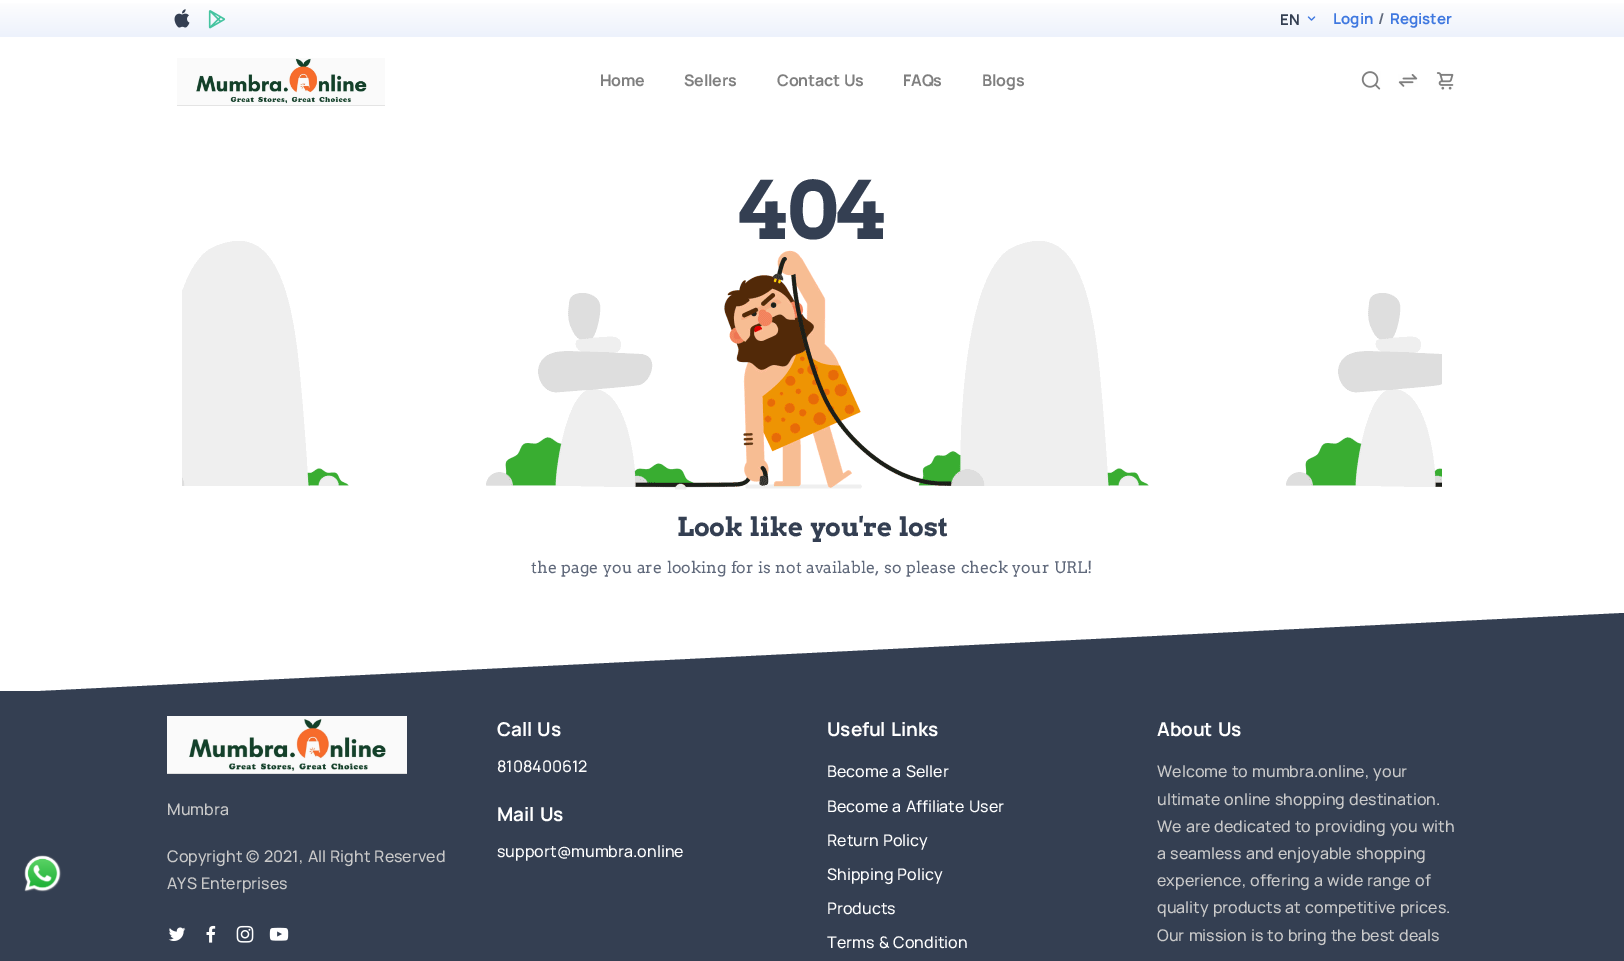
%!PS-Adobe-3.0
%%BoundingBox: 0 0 1624 961
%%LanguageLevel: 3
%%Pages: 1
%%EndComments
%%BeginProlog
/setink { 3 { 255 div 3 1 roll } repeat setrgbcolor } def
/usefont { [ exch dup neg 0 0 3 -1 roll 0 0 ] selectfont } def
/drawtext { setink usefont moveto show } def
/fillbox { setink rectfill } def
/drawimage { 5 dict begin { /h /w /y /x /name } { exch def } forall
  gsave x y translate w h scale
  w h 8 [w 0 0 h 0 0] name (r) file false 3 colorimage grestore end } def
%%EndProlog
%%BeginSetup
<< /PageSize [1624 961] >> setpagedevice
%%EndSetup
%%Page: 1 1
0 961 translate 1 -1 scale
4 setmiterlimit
0 0 1624 961 255 255 255 fillbox
gsave 0 3 moveto 1624 3 lineto 1624 37 lineto 0 37 lineto closepath clip newpath
<< /ShadingType 2 /ColorSpace /DeviceRGB /Coords [812 37 812 0] /Extend [true true] /Function << /FunctionType 2 /Domain [0 1] /C0 [0.929 0.949 0.988] /C1 [0.996 0.996 0.996] /N 1 >> >> shfill grestore
(assets/img1.rgb) 174 9 16 19 drawimage
(assets/img2.rgb) 208 10 18 19 drawimage
(EN) 1280 25 /Manrope-Bold 15 52 63 82 drawtext
(assets/img3.rgb) 1307 16 9 5 drawimage
(Login) 1333 24 /Manrope-Bold 15 63 120 224 drawtext
(/) 1378 24 /Manrope-Bold 15 96 105 123 drawtext
(Register) 1390 24 /Manrope-Bold 15 63 120 224 drawtext
(assets/img4.rgb) 177 58 208 48 drawimage
/Manrope-Bold 16 usefont
127 127 127 setink
600 86 moveto -0.2 0 (Home) ashow
684 86 moveto -0.2 0 (Sellers) ashow
777 86 moveto 1 0 32 -0.2 0 (Contact Us) awidthshow
903 86 moveto -0.2 0 (FAQs) ashow
982 86 moveto -0.2 0 (Blogs) ashow
(assets/img5.rgb) 1361 71 20 19 drawimage
(assets/img6.rgb) 1398 74 20 13 drawimage
(assets/img7.rgb) 1436 72 18 18 drawimage
(assets/img8.rgb) 182 241 1260 249 drawimage
/Arvo-Bold 80 usefont
52 63 82 setink
739 239 moveto -0.2 0 (404) ashow
/Arvo-Bold 26 usefont
677 536 moveto 2 0 32 -0.2 0 (Look like you're lost) awidthshow
/Arvo-Regular 16 usefont
96 105 123 setink
531 573 moveto 1 0 32 (the page you are looking for is not available, so please check your URL!) widthshow
0 691 1624 270 52 63 82 fillbox
(assets/img9.rgb) 24 855 38 37 drawimage
1624 613 moveto 1624 693 lineto 0 693 lineto closepath fill
(assets/img10.rgb) 167 716 240 58 drawimage
(Mumbra) 167 815 /Manrope-Medium 16 202 202 202 drawtext
167 862 moveto 1 0 32 (Copyright © 2021, All Right Reserved) widthshow
167 889 moveto 1 0 32 (AYS Enterprises) widthshow
(assets/img11.rgb) 168 927 18 14 drawimage
(assets/img12.rgb) 206 925 10 18 drawimage
(assets/img13.rgb) 236 925 18 18 drawimage
(assets/img14.rgb) 269 927 20 14 drawimage
/Manrope-Bold 19 usefont
255 255 255 setink
497 736 moveto 2 0 32 -0.2 0 (Call Us) awidthshow
(8108400612) 497 772 /Manrope-Medium 16 255 255 255 drawtext
/Manrope-Bold 19 usefont
497 821 moveto 2 0 32 -0.2 0 (Mail Us) awidthshow
(support@mumbra.online) 497 857 /Manrope-Medium 16 255 255 255 drawtext
/Manrope-Bold 19 usefont
827 736 moveto 2 0 32 -0.2 0 (Useful Links) awidthshow
/Manrope-Medium 16 usefont
827 777 moveto 1 0 32 (Become a Seller) widthshow
827 812 moveto 1 0 32 (Become a Affiliate User) widthshow
827 846 moveto 1 0 32 (Return Policy) widthshow
827 880 moveto 1 0 32 (Shipping Policy) widthshow
(Products) 827 914 /Manrope-Medium 16 255 255 255 drawtext
827 948 moveto 1 0 32 (Terms & Condition) widthshow
/Manrope-Bold 19 usefont
1157 736 moveto 2 0 32 -0.2 0 (About Us) awidthshow
/Manrope-Medium 16 usefont
202 202 202 setink
1157 777 moveto 1 0 32 (Welcome to mumbra.online, your) widthshow
1157 805 moveto 1 0 32 (ultimate online shopping destination.) widthshow
1157 832 moveto 1 0 32 (We are dedicated to providing you with) widthshow
1157 859 moveto 1 0 32 (a seamless and enjoyable shopping) widthshow
1157 886 moveto 1 0 32 (experience, offering a wide range of) widthshow
1157 913 moveto 1 0 32 (quality products at competitive prices.) widthshow
1157 941 moveto 1 0 32 (Our mission is to bring the best deals) widthshow
showpage
%%EOF
